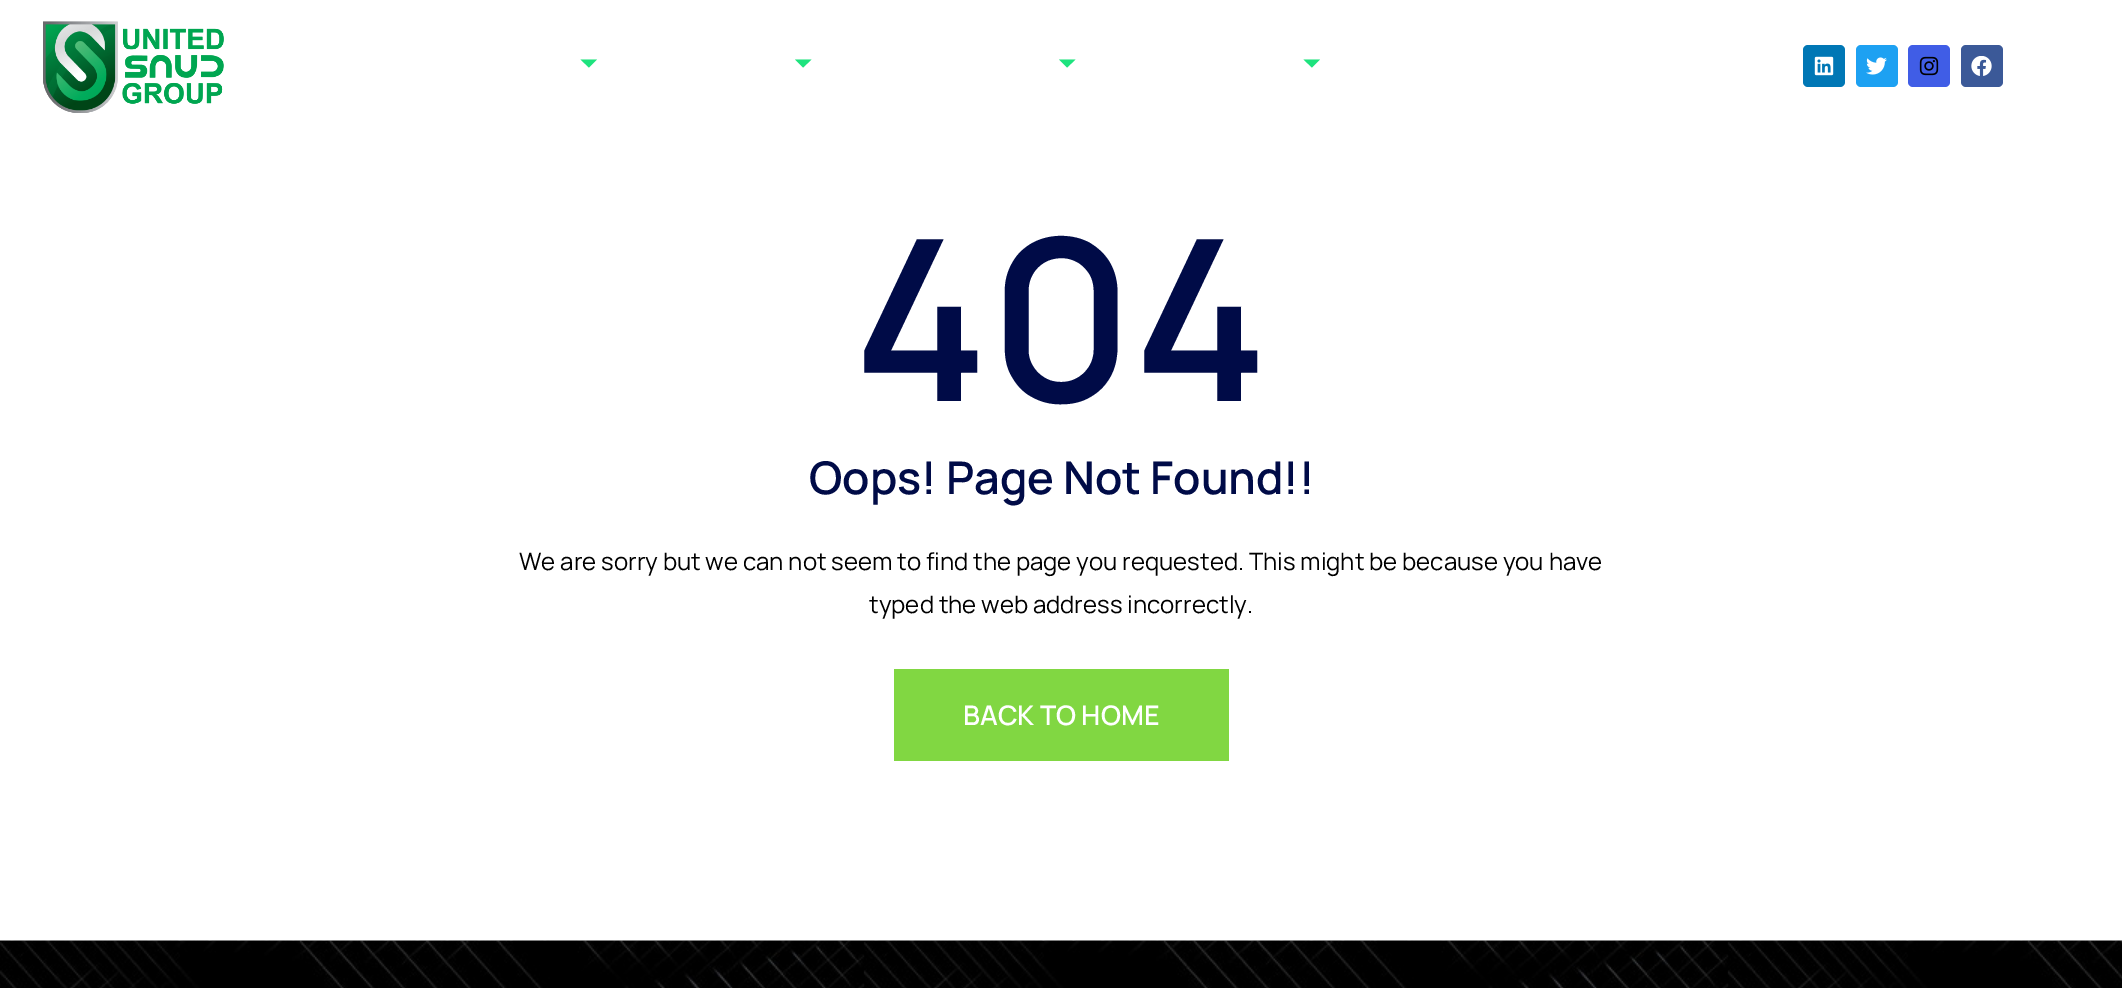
%!PS-Adobe-3.0
%%BoundingBox: 0 0 2122 988
%%LanguageLevel: 3
%%Pages: 1
%%EndComments
%%BeginProlog
/setink { 3 { 255 div 3 1 roll } repeat setrgbcolor } def
/usefont { [ exch dup neg 0 0 3 -1 roll 0 0 ] selectfont } def
/drawtext { setink usefont moveto show } def
/fillbox { setink rectfill } def
/rrect { 5 dict begin { /r /h /w /y /x } { exch def } forall
  x r add y moveto x w add y 2 copy h add r arct x w add y h add x 1 index r arct
  x y h add x y r arct x y 2 copy exch w add exch r arct closepath end } def
/drawimage { 5 dict begin { /h /w /y /x /name } { exch def } forall
  gsave x y translate w h scale
  w h 8 [w 0 0 h 0 0] name (r) file false 3 colorimage grestore end } def
%%EndProlog
%%BeginSetup
<< /PageSize [2122 988] >> setpagedevice
%%EndSetup
%%Page: 1 1
0 988 translate 1 -1 scale
4 setmiterlimit
0 0 2122 988 255 255 255 fillbox
(assets/img1.rgb) 43 21 181 92 drawimage
(assets/img2.rgb) 43 21 181 92 drawimage
30 227 126 setink
580.5 59.5 moveto 597 59.5 lineto 589 67.5 lineto closepath fill
795 59.5 moveto 811.5 59.5 lineto 803 67.5 lineto closepath fill
1059 59.5 moveto 1075.5 59.5 lineto 1067 67.5 lineto closepath fill
1303.5 59.5 moveto 1320 59.5 lineto 1312 67.5 lineto closepath fill
0 119 181 setink
1803 45 42 42 5 rrect fill
(assets/img3.rgb) 1814 56 20 20 drawimage
29 161 242 setink
1856 45 42 42 5 rrect fill
(assets/img4.rgb) 1866 57 21 18 drawimage
64 93 230 setink
1908 45 42 42 5 rrect fill
(assets/img5.rgb) 1919 56 20 20 drawimage
59 89 152 setink
1961 45 42 42 5 rrect fill
(assets/img6.rgb) 1971 56 21 20 drawimage
(404) 853 401 /Manrope-SemiBold 225 0 11 71 drawtext
(Oops! Page Not Found!!) 809 494 /Manrope-SemiBold 45 0 11 71 drawtext
(We are sorry but we can not seem to find the page you requested. This might be because you have) 519 570 /Manrope-Regular 24 0 0 0 drawtext
(typed the web address incorrectly.) 869 613 /Manrope-Regular 24 0 0 0 drawtext
894 669 335 92 129 215 66 fillbox
(BACK TO HOME) 963 725 /Manrope-SemiBold 27 255 255 255 drawtext
(assets/img7.rgb) 0 940 2122 48 drawimage
showpage
%%EOF
